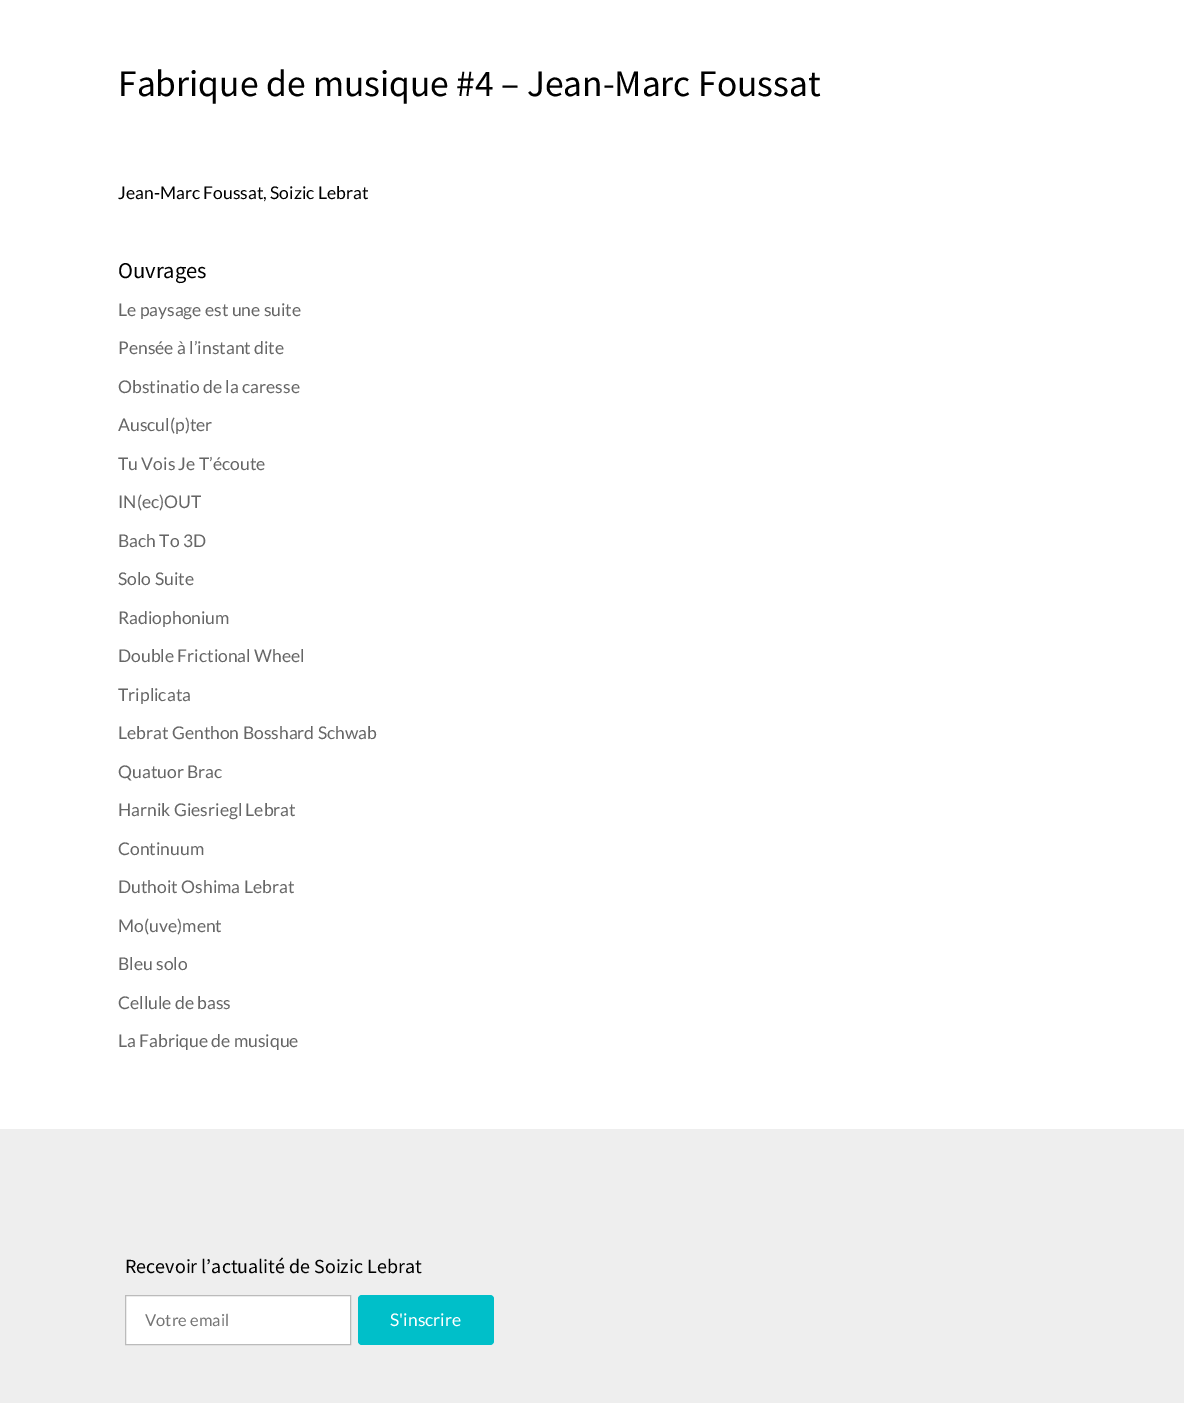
%!PS-Adobe-3.0
%%BoundingBox: 0 0 1184 1403
%%LanguageLevel: 3
%%Pages: 1
%%EndComments
%%BeginProlog
/setink { 3 { 255 div 3 1 roll } repeat setrgbcolor } def
/usefont { [ exch dup neg 0 0 3 -1 roll 0 0 ] selectfont } def
/drawtext { setink usefont moveto show } def
/fillbox { setink rectfill } def
/rrect { 5 dict begin { /r /h /w /y /x } { exch def } forall
  x r add y moveto x w add y 2 copy h add r arct x w add y h add x 1 index r arct
  x y h add x y r arct x y 2 copy exch w add exch r arct closepath end } def
%%EndProlog
%%BeginSetup
<< /PageSize [1184 1403] >> setpagedevice
%%EndSetup
%%Page: 1 1
0 1403 translate 1 -1 scale
4 setmiterlimit
0 0 1184 1403 255 255 255 fillbox
(Fabrique de musique #4 – Jean-Marc Foussat) 118 96 /SourceSansPro-Regular 37.5 0 0 0 drawtext
(Jean-Marc Foussat, Soizic Lebrat) 118 199 /Lato-Regular 17.5 0 0 0 drawtext
(Ouvrages) 118 278 /SourceSansPro-Regular 22.5 0 0 0 drawtext
(Le paysage est une suite) 118 316 /Lato-Regular 17.5 102 102 102 drawtext
(Pensée à l’instant dite) 118 354 /Lato-Regular 17.5 102 102 102 drawtext
(Obstinatio de la caresse) 118 393 /Lato-Regular 17.5 102 102 102 drawtext
(Auscul\(p\)ter) 118 431 /Lato-Regular 17.5 102 102 102 drawtext
(Tu Vois Je T’écoute) 118 470 /Lato-Regular 17.5 102 102 102 drawtext
(IN\(ec\)OUT) 118 508 /Lato-Regular 17.5 102 102 102 drawtext
(Bach To 3D) 118 547 /Lato-Regular 17.5 102 102 102 drawtext
(Solo Suite) 118 585 /Lato-Regular 17.5 102 102 102 drawtext
(Radiophonium) 118 624 /Lato-Regular 17.5 102 102 102 drawtext
(Double Frictional Wheel) 118 662 /Lato-Regular 17.5 102 102 102 drawtext
(Triplicata) 118 701 /Lato-Regular 17.5 102 102 102 drawtext
(Lebrat Genthon Bosshard Schwab) 118 739 /Lato-Regular 17.5 102 102 102 drawtext
(Quatuor Brac) 118 778 /Lato-Regular 17.5 102 102 102 drawtext
(Harnik Giesriegl Lebrat) 118 816 /Lato-Regular 17.5 102 102 102 drawtext
(Continuum) 118 855 /Lato-Regular 17.5 102 102 102 drawtext
(Duthoit Oshima Lebrat) 118 893 /Lato-Regular 17.5 102 102 102 drawtext
(Mo\(uve\)ment) 118 932 /Lato-Regular 17.5 102 102 102 drawtext
(Bleu solo) 118 970 /Lato-Regular 17.5 102 102 102 drawtext
(Cellule de bass) 118 1009 /Lato-Regular 17.5 102 102 102 drawtext
(La Fabrique de musique) 118 1047 /Lato-Regular 17.5 102 102 102 drawtext
0 1129 1184 274 238 238 238 fillbox
(Recevoir l’actualité de Soizic Lebrat) 125 1273 /SourceSansPro-Regular 20 0 0 0 drawtext
255 255 255 setink
125.5 1295.5 moveto 350.5 1295.5 lineto 350.5 1344.5 lineto 125.5 1344.5 lineto closepath gsave fill grestore
187 187 187 setink
stroke
(Votre email) 145 1326 /Lato-Regular 16.5 117 117 117 drawtext
0 191 201 setink
358 1295 136 50 4 rrect fill
(S'inscrire) 390 1326 /Lato-Regular 17.5 255 255 255 drawtext
showpage
%%EOF
